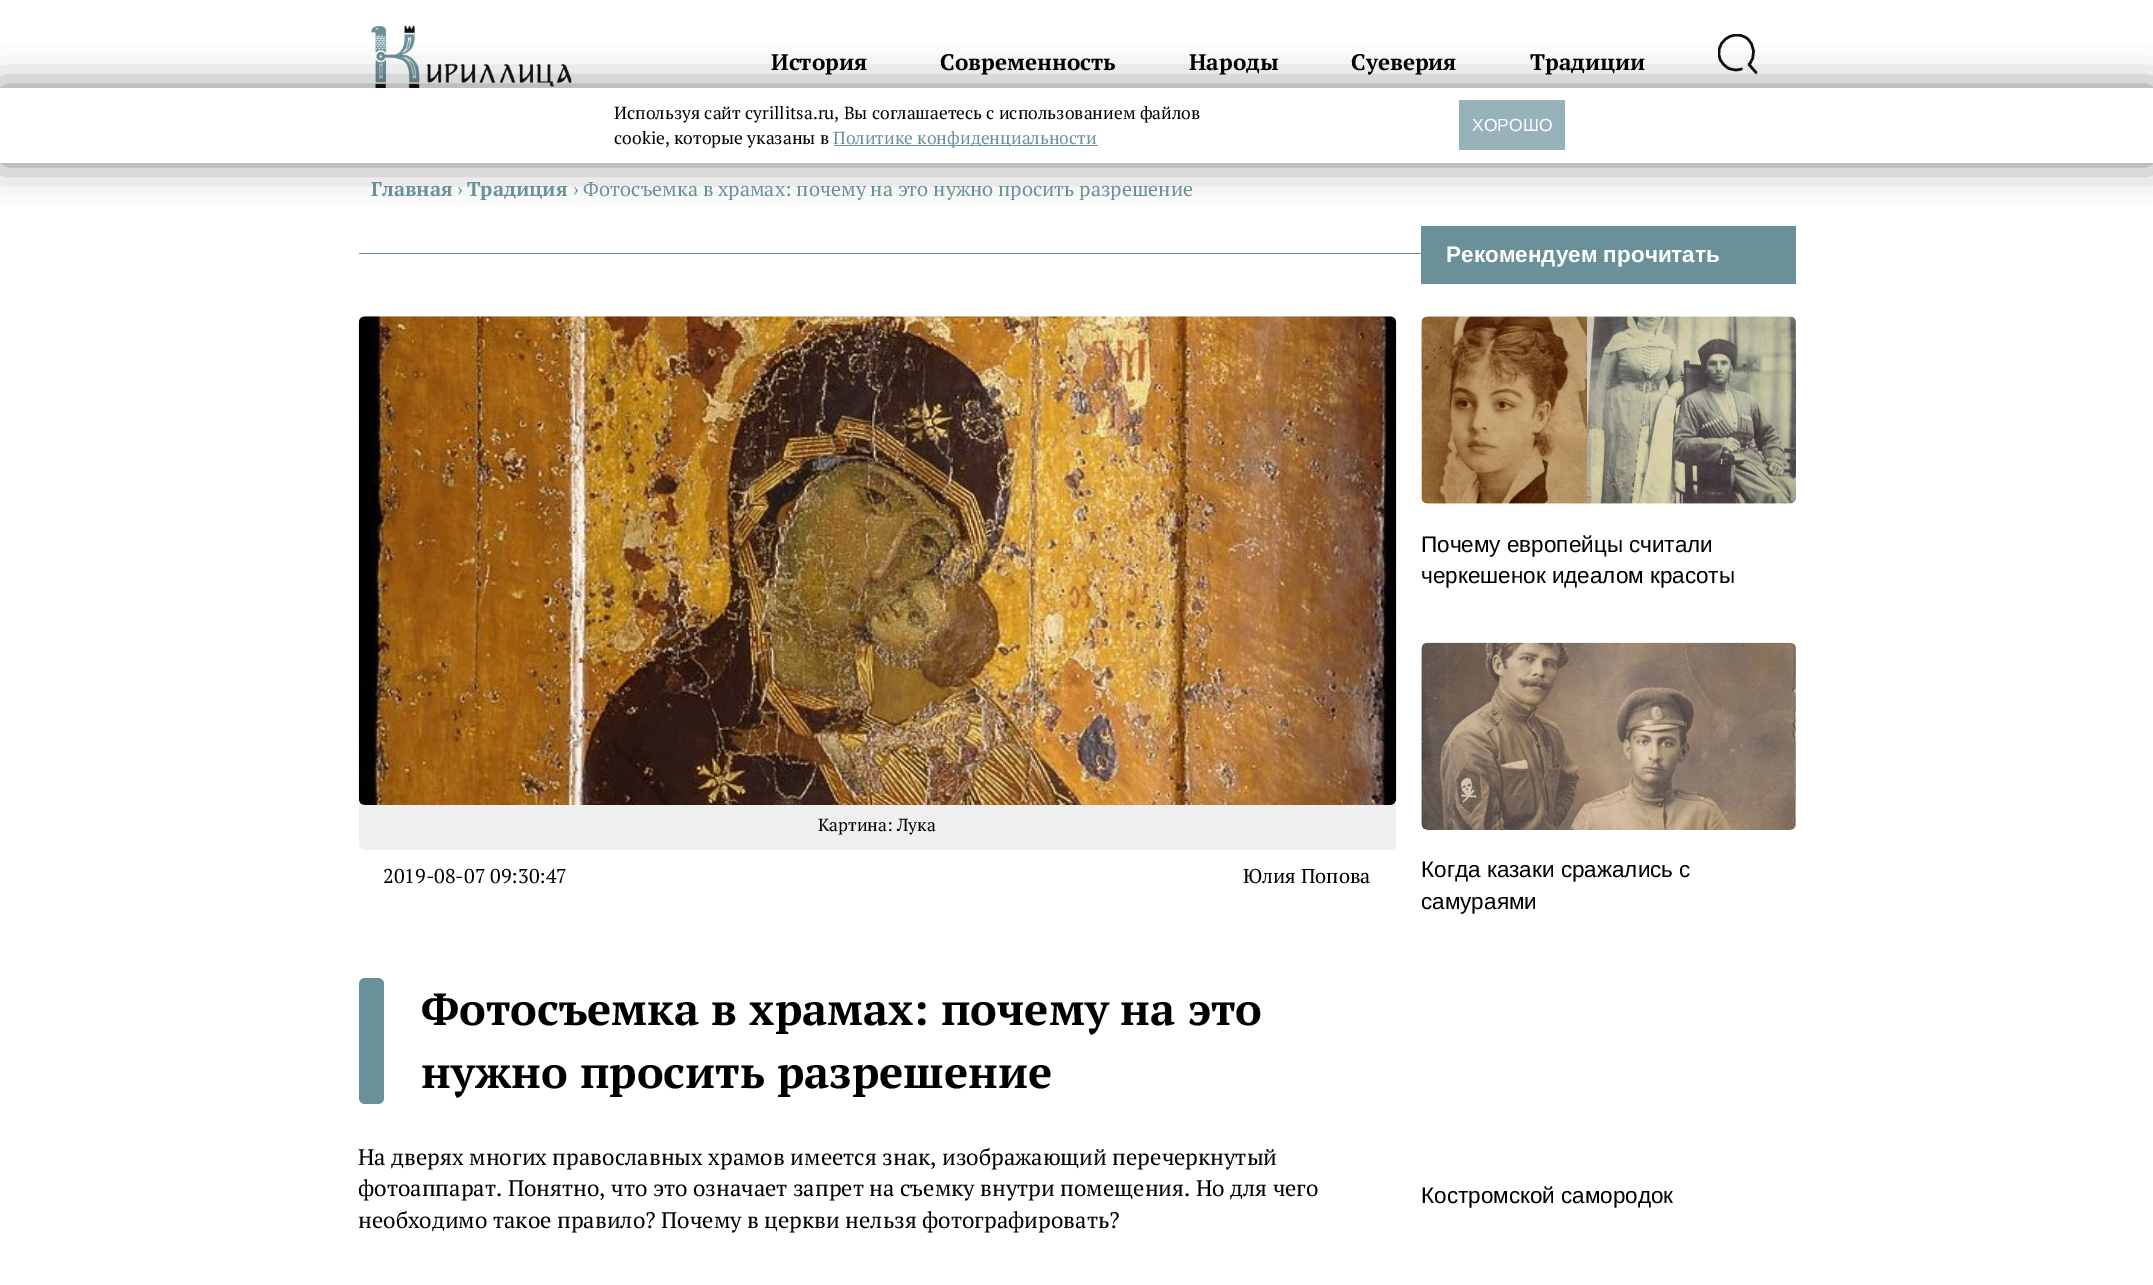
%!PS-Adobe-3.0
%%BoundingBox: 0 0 2153 1285
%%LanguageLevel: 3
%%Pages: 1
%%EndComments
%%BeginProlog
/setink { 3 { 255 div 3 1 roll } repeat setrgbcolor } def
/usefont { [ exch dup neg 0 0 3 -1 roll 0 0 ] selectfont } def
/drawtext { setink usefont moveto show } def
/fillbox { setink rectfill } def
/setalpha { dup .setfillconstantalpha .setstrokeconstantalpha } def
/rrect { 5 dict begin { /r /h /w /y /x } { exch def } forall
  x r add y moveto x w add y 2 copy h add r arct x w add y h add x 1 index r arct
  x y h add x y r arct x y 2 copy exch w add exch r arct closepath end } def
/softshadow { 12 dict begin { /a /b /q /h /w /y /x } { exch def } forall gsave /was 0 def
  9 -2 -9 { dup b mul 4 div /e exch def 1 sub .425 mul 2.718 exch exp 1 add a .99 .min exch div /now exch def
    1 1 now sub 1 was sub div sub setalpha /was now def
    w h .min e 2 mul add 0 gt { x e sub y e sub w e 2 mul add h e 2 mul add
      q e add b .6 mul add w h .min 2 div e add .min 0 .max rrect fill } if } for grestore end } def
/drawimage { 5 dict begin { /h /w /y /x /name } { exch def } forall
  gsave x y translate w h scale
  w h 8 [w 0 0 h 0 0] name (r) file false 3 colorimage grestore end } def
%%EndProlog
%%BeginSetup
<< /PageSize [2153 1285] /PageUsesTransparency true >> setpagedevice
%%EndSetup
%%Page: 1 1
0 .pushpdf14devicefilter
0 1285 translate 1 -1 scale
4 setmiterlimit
0 0 2153 1285 255 255 255 fillbox
(assets/img1.rgb) 371 25 201 63 drawimage
(История) 771 70 /PTSerif-Bold 22.5 0 0 0 drawtext
(Современность) 940 70 /PTSerif-Bold 22.5 0 0 0 drawtext
(Народы) 1189 70 /PTSerif-Bold 22.5 0 0 0 drawtext
(Суеверия) 1351 70 /PTSerif-Bold 22.5 0 0 0 drawtext
(Традиции) 1530 70 /PTSerif-Bold 22.5 0 0 0 drawtext
gsave
1718 34 40 40 rectclip
16 16 16 setink
2.5 setlinewidth
1 setlinecap
1 setlinejoin
1756 72.5 moveto 1749 64.5 lineto 1756 57 1755 44.5 1746.5 38 curveto 1732 28 1713 44 1720.5 60 curveto 1722 63 1724.5 66 1728 68 curveto 1732 70 1737 70.5 1741.5 69 curveto stroke
grestore
0 88 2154 75 0 19 0.5 softshadow
0 88 2153 75 255 255 255 fillbox
(Используя сайт cyrillitsa.ru, Вы соглашаетесь с использованием файлов) 614 119 /PTSerif-Regular 17.5 0 0 0 drawtext
(cookie, которые указаны в) 614 144 /PTSerif-Regular 17.5 0 0 0 drawtext
834 145 264 1 106 145 153 fillbox
(Политике конфиденциальности) 833 144 /PTSerif-Regular 17.5 106 145 153 drawtext
1459 100 106 50 151 178 184 fillbox
(ХОРОШО) 1472 131 /LiberationSans-Regular 17.5 255 255 255 drawtext
(Главная) 371 196 /PTSerif-Bold 20 106 145 153 drawtext
(›) 457 196 /PTSerif-Regular 20 106 145 153 drawtext
(Традиция) 467 196 /PTSerif-Bold 20 106 145 153 drawtext
(› Фотосъемка в храмах: почему на это нужно просить разрешение) 573 196 /PTSerif-Regular 20 106 145 153 drawtext
359 253 1062 1 106 145 153 fillbox
239 239 239 setink
359 794 1037 56 6 rrect fill
(assets/img2.rgb) 358 316 1039 489 drawimage
(Картина: Лука) 818 831 /PTSerif-Regular 17.5 0 0 0 drawtext
(2019-08-07 09:30:47) 383 883 /PTSerif-Regular 20 0 0 0 drawtext
(Юлия Попова) 1243 883 /PTSerif-Regular 20 0 0 0 drawtext
106 145 153 setink
359 978 25 126 6 rrect fill
(Фотосъемка в храмах: почему на это) 421 1025 /PTSerif-Bold 45 0 0 0 drawtext
(нужно просить разрешение) 421 1088 /PTSerif-Bold 45 0 0 0 drawtext
(На дверях многих православных храмов имеется знак, изображающий перечеркнутый) 358 1165 /PTSerif-Regular 22.5 0 0 0 drawtext
(фотоаппарат. Понятно, что это означает запрет на съемку внутри помещения. Но для чего) 358 1196 /PTSerif-Regular 22.5 0 0 0 drawtext
(необходимо такое правило? Почему в церкви нельзя фотографировать?) 358 1228 /PTSerif-Regular 22.5 0 0 0 drawtext
1421 226 375 58 106 145 153 fillbox
(Рекомендуем прочитать) 1446 262 /LiberationSans-Bold 22.5 255 255 255 drawtext
(assets/img3.rgb) 1421 316 375 188 drawimage
(Почему европейцы считали) 1421 552 /LiberationSans-Regular 22.5 0 0 0 drawtext
(черкешенок идеалом красоты) 1421 583 /LiberationSans-Regular 22.5 0 0 0 drawtext
(assets/img4.rgb) 1421 642 375 188 drawimage
(Когда казаки сражались с) 1421 877 /LiberationSans-Regular 22.5 0 0 0 drawtext
(самураями) 1421 909 /LiberationSans-Regular 22.5 0 0 0 drawtext
(Костромской самородок) 1421 1203 /LiberationSans-Regular 22.5 0 0 0 drawtext
.poppdf14devicefilter showpage
%%EOF
